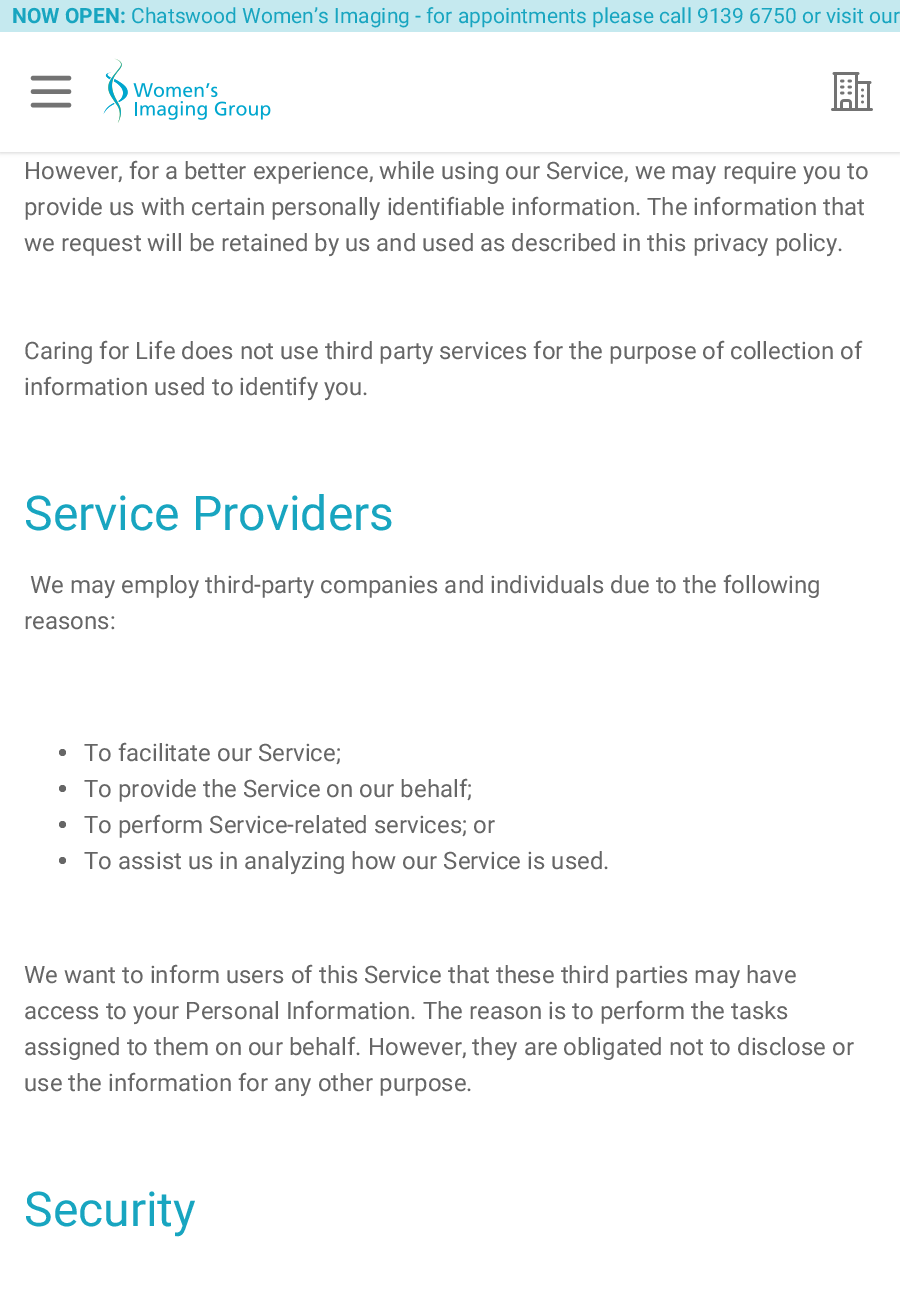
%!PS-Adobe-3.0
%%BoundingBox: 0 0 900 1294
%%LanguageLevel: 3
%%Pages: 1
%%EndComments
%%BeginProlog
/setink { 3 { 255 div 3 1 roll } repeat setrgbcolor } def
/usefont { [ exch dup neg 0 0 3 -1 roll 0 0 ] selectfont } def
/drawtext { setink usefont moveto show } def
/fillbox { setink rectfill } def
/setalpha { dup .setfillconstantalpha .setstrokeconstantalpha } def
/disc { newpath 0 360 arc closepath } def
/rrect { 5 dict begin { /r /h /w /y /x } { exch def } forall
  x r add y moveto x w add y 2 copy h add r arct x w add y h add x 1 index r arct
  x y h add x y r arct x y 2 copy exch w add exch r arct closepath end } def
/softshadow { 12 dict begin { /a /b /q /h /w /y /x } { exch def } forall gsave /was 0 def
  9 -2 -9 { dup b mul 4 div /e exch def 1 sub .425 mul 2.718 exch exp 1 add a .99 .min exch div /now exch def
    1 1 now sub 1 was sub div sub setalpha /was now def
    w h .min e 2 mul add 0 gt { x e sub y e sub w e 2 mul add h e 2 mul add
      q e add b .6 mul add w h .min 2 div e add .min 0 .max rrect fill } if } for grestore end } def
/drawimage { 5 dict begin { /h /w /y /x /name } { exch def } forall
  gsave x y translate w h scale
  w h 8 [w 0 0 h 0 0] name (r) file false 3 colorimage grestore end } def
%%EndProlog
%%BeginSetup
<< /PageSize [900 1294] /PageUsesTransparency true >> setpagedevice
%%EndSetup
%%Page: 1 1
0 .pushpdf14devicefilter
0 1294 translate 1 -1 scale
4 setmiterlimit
0 0 900 1294 255 255 255 fillbox
0 0 0 setink
0 2 900 151 0 1.5 0.06 softshadow
0 2 900 151 0 2 0.1 softshadow
0 32 900 120 255 255 255 fillbox
0 0 900 32 197 233 239 fillbox
(NOW OPEN:) 12 23 /Roboto-Bold 21 24 165 192 drawtext
(Chatswood Women’s Imaging - for appointments please call 9139 6750 or visit our) 131 23 /Roboto-Regular 21 24 165 192 drawtext
115 115 115 setink
4.5 setlinewidth
1 setlinecap
1 setlinejoin
33 78 moveto 69 78 lineto 33 91.5 moveto 69 91.5 lineto 33 105 moveto 69 105 lineto stroke
(assets/img1.rgb) 103 58 168 65 drawimage
(assets/img2.rgb) 831 72 42 39 drawimage
(However, for a better experience, while using our Service, we may require you to) 24 179 /Roboto-Regular 24 102 102 102 drawtext
(provide us with certain personally identifiable information. The information that) 24 215 /Roboto-Regular 24 102 102 102 drawtext
(we request will be retained by us and used as described in this privacy policy.) 24 251 /Roboto-Regular 24 102 102 102 drawtext
(Caring for Life does not use third party services for the purpose of collection of) 24 359 /Roboto-Regular 24 102 102 102 drawtext
(information used to identify you.) 24 395 /Roboto-Regular 24 102 102 102 drawtext
(Service Providers) 24 530 /Roboto-Regular 48 24 165 192 drawtext
(We may employ third-party companies and individuals due to the following) 30 593 /Roboto-Regular 24 102 102 102 drawtext
(reasons:) 24 629 /Roboto-Regular 24 102 102 102 drawtext
62.5 752.5 3.5 disc fill
(To facilitate our Service;) 84 761 /Roboto-Regular 24 102 102 102 drawtext
62.5 788.5 3.5 disc fill
(To provide the Service on our behalf;) 84 797 /Roboto-Regular 24 102 102 102 drawtext
62.5 824.5 3.5 disc fill
(To perform Service-related services; or) 84 833 /Roboto-Regular 24 102 102 102 drawtext
62.5 860.5 3.5 disc fill
(To assist us in analyzing how our Service is used.) 84 869 /Roboto-Regular 24 102 102 102 drawtext
(We want to inform users of this Service that these third parties may have) 24 983 /Roboto-Regular 24 102 102 102 drawtext
(access to your Personal Information. The reason is to perform the tasks) 24 1019 /Roboto-Regular 24 102 102 102 drawtext
(assigned to them on our behalf. However, they are obligated not to disclose or) 24 1055 /Roboto-Regular 24 102 102 102 drawtext
(use the information for any other purpose.) 24 1091 /Roboto-Regular 24 102 102 102 drawtext
(Security) 24 1226 /Roboto-Regular 48 24 165 192 drawtext
.poppdf14devicefilter showpage
%%EOF
